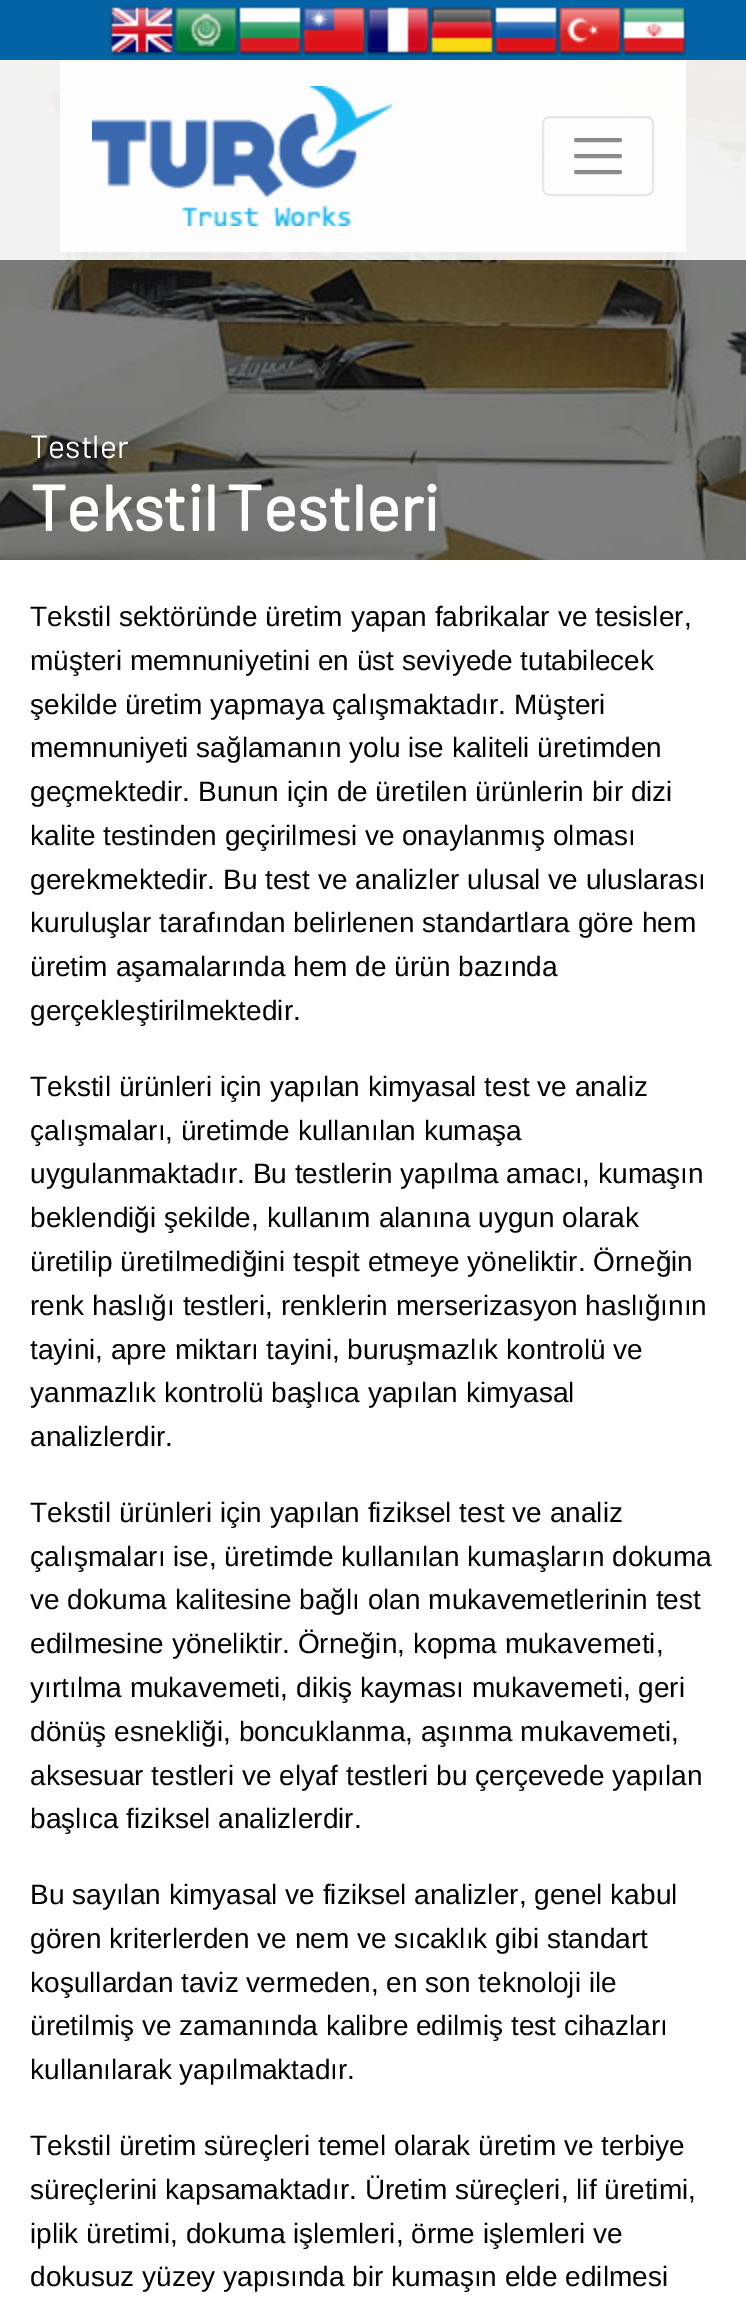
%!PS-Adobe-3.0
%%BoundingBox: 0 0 746 2297
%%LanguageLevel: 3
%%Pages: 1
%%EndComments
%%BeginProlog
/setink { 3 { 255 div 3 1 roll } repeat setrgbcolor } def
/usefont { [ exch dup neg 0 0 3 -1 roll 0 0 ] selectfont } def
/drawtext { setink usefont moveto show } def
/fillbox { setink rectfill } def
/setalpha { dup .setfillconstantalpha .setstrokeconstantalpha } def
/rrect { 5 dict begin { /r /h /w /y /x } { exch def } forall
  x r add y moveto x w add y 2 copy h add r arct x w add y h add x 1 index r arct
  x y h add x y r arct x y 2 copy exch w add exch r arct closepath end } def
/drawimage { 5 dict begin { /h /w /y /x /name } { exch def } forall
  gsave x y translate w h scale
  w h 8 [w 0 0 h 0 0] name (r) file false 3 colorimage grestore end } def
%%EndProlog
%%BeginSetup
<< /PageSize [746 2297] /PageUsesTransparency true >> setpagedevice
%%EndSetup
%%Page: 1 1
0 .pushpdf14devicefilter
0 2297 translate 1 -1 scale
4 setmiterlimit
0 0 746 2297 255 255 255 fillbox
0 0 746 60 3 99 164 fillbox
(assets/img1.rgb) 110 6 64 50 drawimage
(assets/img2.rgb) 174 6 64 50 drawimage
(assets/img3.rgb) 238 6 64 50 drawimage
(assets/img4.rgb) 302 6 64 50 drawimage
(assets/img5.rgb) 366 6 64 50 drawimage
(assets/img6.rgb) 430 6 64 50 drawimage
(assets/img7.rgb) 494 6 64 50 drawimage
(assets/img8.rgb) 558 6 64 50 drawimage
(assets/img9.rgb) 622 6 64 50 drawimage
(assets/img11.rgb) 0 60 746 500 drawimage
0.9 setalpha
0 60 746 200 255 255 255 fillbox
60 60 626 192 255 255 255 fillbox
1 setalpha
(assets/img10.rgb) 92 86 300 140 drawimage
230 230 230 setink
2 setlinewidth
543 117 110 78 7 rrect stroke
139 139 139 setink
4 setlinewidth
1 setlinecap
576 140 moveto 620 140 lineto 576 156 moveto 620 156 lineto 576 172 moveto 620 172 lineto stroke
(Testler) 30 458 /Barlow-Regular 32 255 255 255 drawtext
/Barlow-Bold 64 usefont
30 531 moveto -4 0 32 (Tekstil Testleri) widthshow
(Tekstil sektöründe üretim yapan fabrikalar ve tesisler,) 30 626 /LiberationSans-Regular 28 0 0 0 drawtext
(müşteri memnuniyetini en üst seviyede tutabilecek) 30 670 /LiberationSans-Regular 28 0 0 0 drawtext
(şekilde üretim yapmaya çalışmaktadır. Müşteri) 30 714 /LiberationSans-Regular 28 0 0 0 drawtext
(memnuniyeti sağlamanın yolu ise kaliteli üretimden) 30 757 /LiberationSans-Regular 28 0 0 0 drawtext
(geçmektedir. Bunun için de üretilen ürünlerin bir dizi) 30 801 /LiberationSans-Regular 28 0 0 0 drawtext
(kalite testinden geçirilmesi ve onaylanmış olması) 30 845 /LiberationSans-Regular 28 0 0 0 drawtext
(gerekmektedir. Bu test ve analizler ulusal ve uluslarası) 30 889 /LiberationSans-Regular 28 0 0 0 drawtext
(kuruluşlar tarafından belirlenen standartlara göre hem) 30 932 /LiberationSans-Regular 28 0 0 0 drawtext
(üretim aşamalarında hem de ürün bazında) 30 976 /LiberationSans-Regular 28 0 0 0 drawtext
(gerçekleştirilmektedir.) 30 1020 /LiberationSans-Regular 28 0 0 0 drawtext
(Tekstil ürünleri için yapılan kimyasal test ve analiz) 30 1096 /LiberationSans-Regular 28 0 0 0 drawtext
(çalışmaları, üretimde kullanılan kumaşa) 30 1140 /LiberationSans-Regular 28 0 0 0 drawtext
(uygulanmaktadır. Bu testlerin yapılma amacı, kumaşın) 30 1183 /LiberationSans-Regular 28 0 0 0 drawtext
(beklendiği şekilde, kullanım alanına uygun olarak) 30 1227 /LiberationSans-Regular 28 0 0 0 drawtext
(üretilip üretilmediğini tespit etmeye yöneliktir. Örneğin) 30 1271 /LiberationSans-Regular 28 0 0 0 drawtext
(renk haslığı testleri, renklerin merserizasyon haslığının) 30 1315 /LiberationSans-Regular 28 0 0 0 drawtext
(tayini, apre miktarı tayini, buruşmazlık kontrolü ve) 30 1359 /LiberationSans-Regular 28 0 0 0 drawtext
(yanmazlık kontrolü başlıca yapılan kimyasal) 30 1402 /LiberationSans-Regular 28 0 0 0 drawtext
(analizlerdir.) 30 1446 /LiberationSans-Regular 28 0 0 0 drawtext
(Tekstil ürünleri için yapılan fiziksel test ve analiz) 30 1522 /LiberationSans-Regular 28 0 0 0 drawtext
(çalışmaları ise, üretimde kullanılan kumaşların dokuma) 30 1566 /LiberationSans-Regular 28 0 0 0 drawtext
(ve dokuma kalitesine bağlı olan mukavemetlerinin test) 30 1609 /LiberationSans-Regular 28 0 0 0 drawtext
(edilmesine yöneliktir. Örneğin, kopma mukavemeti,) 30 1653 /LiberationSans-Regular 28 0 0 0 drawtext
(yırtılma mukavemeti, dikiş kayması mukavemeti, geri) 30 1697 /LiberationSans-Regular 28 0 0 0 drawtext
(dönüş esnekliği, boncuklanma, aşınma mukavemeti,) 30 1741 /LiberationSans-Regular 28 0 0 0 drawtext
(aksesuar testleri ve elyaf testleri bu çerçevede yapılan) 30 1785 /LiberationSans-Regular 28 0 0 0 drawtext
(başlıca fiziksel analizlerdir.) 30 1828 /LiberationSans-Regular 28 0 0 0 drawtext
(Bu sayılan kimyasal ve fiziksel analizler, genel kabul) 30 1904 /LiberationSans-Regular 28 0 0 0 drawtext
(gören kriterlerden ve nem ve sıcaklık gibi standart) 30 1948 /LiberationSans-Regular 28 0 0 0 drawtext
(koşullardan taviz vermeden, en son teknoloji ile) 30 1992 /LiberationSans-Regular 28 0 0 0 drawtext
(üretilmiş ve zamanında kalibre edilmiş test cihazları) 30 2035 /LiberationSans-Regular 28 0 0 0 drawtext
(kullanılarak yapılmaktadır.) 30 2079 /LiberationSans-Regular 28 0 0 0 drawtext
(Tekstil üretim süreçleri temel olarak üretim ve terbiye) 30 2155 /LiberationSans-Regular 28 0 0 0 drawtext
(süreçlerini kapsamaktadır. Üretim süreçleri, lif üretimi,) 30 2199 /LiberationSans-Regular 28 0 0 0 drawtext
(iplik üretimi, dokuma işlemleri, örme işlemleri ve) 30 2243 /LiberationSans-Regular 28 0 0 0 drawtext
(dokusuz yüzey yapısında bir kumaşın elde edilmesi) 30 2286 /LiberationSans-Regular 28 0 0 0 drawtext
.poppdf14devicefilter showpage
%%EOF
